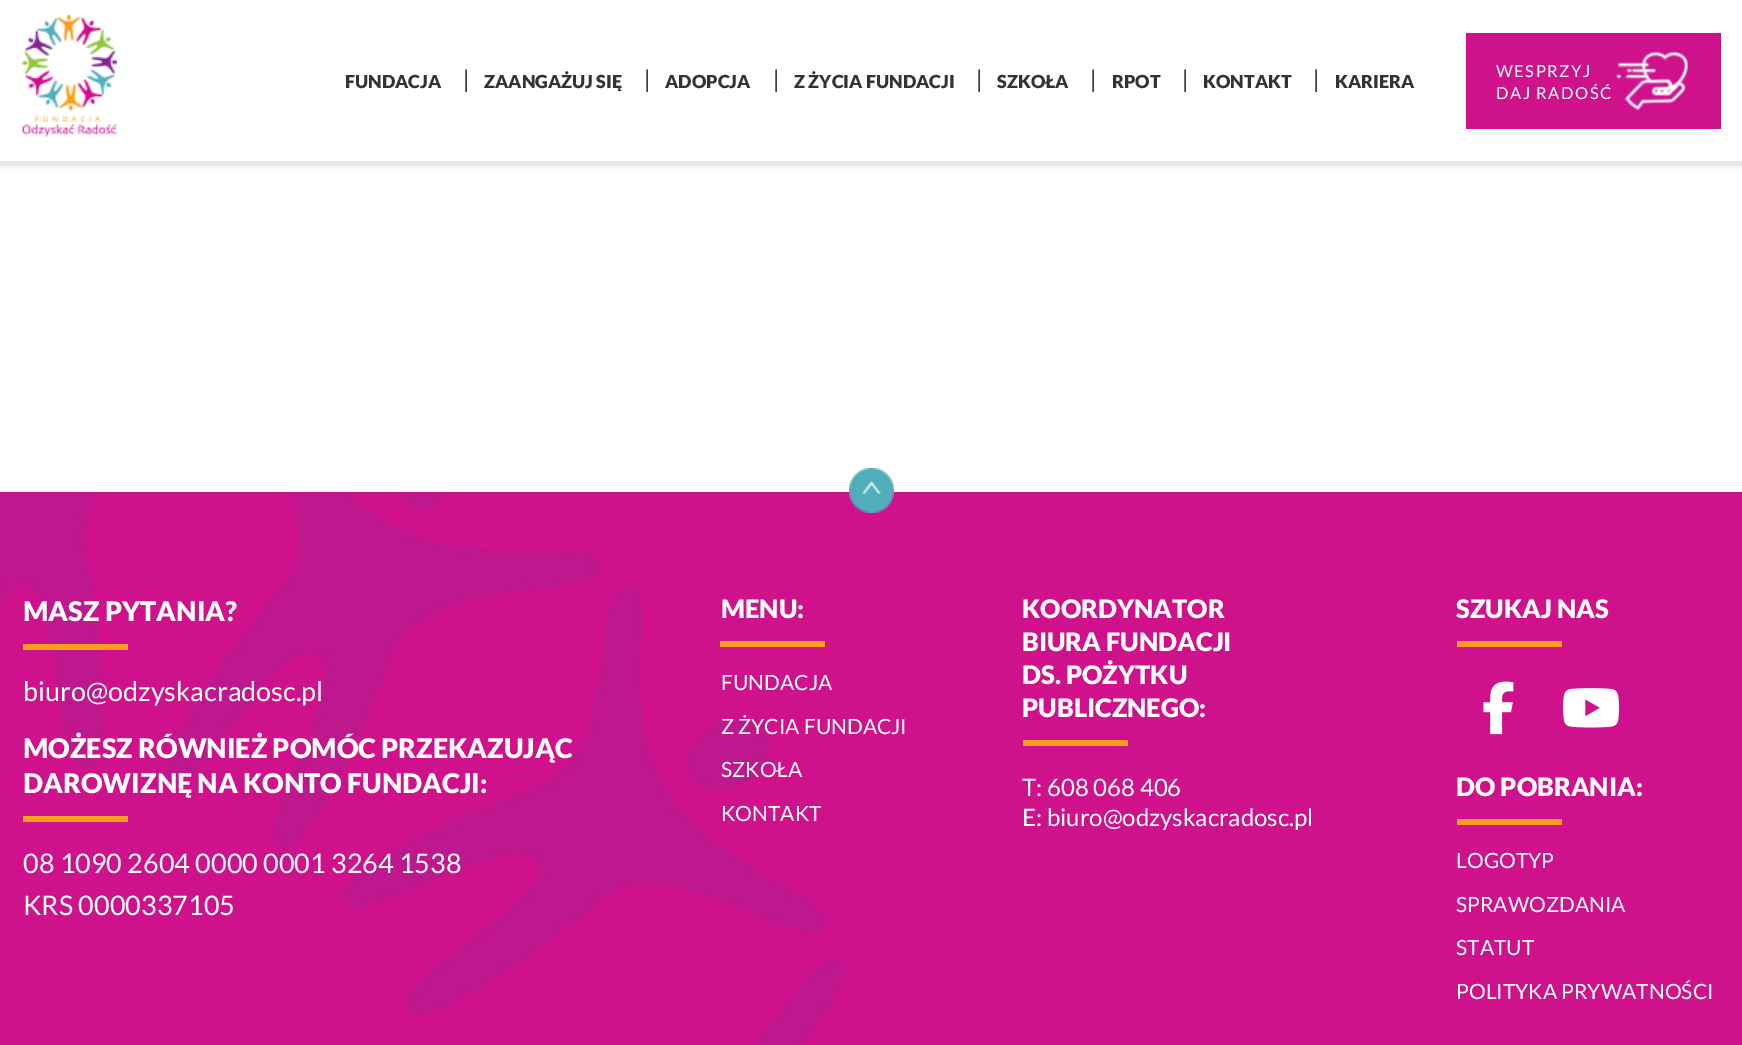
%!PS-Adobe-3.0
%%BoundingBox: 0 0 1742 1045
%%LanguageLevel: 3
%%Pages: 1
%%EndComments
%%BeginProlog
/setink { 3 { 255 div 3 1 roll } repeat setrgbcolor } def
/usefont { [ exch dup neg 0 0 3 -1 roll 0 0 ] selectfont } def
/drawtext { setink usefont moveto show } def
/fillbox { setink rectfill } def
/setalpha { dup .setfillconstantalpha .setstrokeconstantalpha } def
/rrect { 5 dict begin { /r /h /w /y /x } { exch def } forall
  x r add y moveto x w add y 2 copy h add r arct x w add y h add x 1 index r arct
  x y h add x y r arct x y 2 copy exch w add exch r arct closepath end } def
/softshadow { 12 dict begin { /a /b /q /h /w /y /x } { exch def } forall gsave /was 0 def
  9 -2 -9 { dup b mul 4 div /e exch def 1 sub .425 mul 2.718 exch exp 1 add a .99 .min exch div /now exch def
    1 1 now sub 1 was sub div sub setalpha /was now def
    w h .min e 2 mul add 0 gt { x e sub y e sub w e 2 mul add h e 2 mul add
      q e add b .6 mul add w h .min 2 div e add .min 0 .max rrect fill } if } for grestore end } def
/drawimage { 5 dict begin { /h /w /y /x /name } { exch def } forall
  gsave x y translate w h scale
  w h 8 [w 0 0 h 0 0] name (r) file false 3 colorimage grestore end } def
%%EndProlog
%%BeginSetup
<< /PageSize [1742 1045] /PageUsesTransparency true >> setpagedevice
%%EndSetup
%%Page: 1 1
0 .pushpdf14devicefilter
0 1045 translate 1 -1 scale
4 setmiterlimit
0 0 1742 1045 255 255 255 fillbox
0 0 0 setink
-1 2 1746 165 0 3 0.11 softshadow
0 0 1742 161 255 255 255 fillbox
0 161 1742 2 232 232 232 fillbox
(assets/img1.rgb) 22 15 95 122 drawimage
(FUNDACJA) 345 88 /Lato-Black 18 51 51 51 drawtext
(|) 463 87 /LiberationSans-Regular 24 64 64 64 drawtext
(ZAANGAŻUJ SIĘ) 484 88 /Lato-Black 18 51 51 51 drawtext
(|) 644 87 /LiberationSans-Regular 24 64 64 64 drawtext
(ADOPCJA) 665 88 /Lato-Black 18 51 51 51 drawtext
(|) 773 87 /LiberationSans-Regular 24 64 64 64 drawtext
(Z ŻYCIA FUNDACJI) 794 88 /Lato-Black 18 51 51 51 drawtext
(|) 976 87 /LiberationSans-Regular 24 64 64 64 drawtext
(SZKOŁA) 997 88 /Lato-Black 18 51 51 51 drawtext
(|) 1090 87 /LiberationSans-Regular 24 64 64 64 drawtext
(RPOT) 1112 88 /Lato-Black 18 51 51 51 drawtext
(|) 1182 87 /LiberationSans-Regular 24 64 64 64 drawtext
(KONTAKT) 1203 88 /Lato-Black 18 51 51 51 drawtext
(|) 1313 87 /LiberationSans-Regular 24 64 64 64 drawtext
(KARIERA) 1335 88 /Lato-Black 18 51 51 51 drawtext
1466 33 255 96 207 18 140 fillbox
(assets/img2.rgb) 1616 51 72 60 drawimage
/Lato-Regular 16.5 usefont
255 255 255 setink
1496 77 moveto 1.5 0 (WESPRZYJ) ashow
1496 99 moveto 1.5 0 (DAJ RADOŚĆ) ashow
(assets/img3.rgb) 0 492 1742 553 drawimage
(assets/img4.rgb) 849 468 45 45 drawimage
(MASZ PYTANIA?) 23 621 /Lato-Black 27 255 255 255 drawtext
23 644 105 6 248 157 29 fillbox
(biuro@odzyskacradosc.pl) 23 701 /Lato-Regular 27 255 255 255 drawtext
(MOŻESZ RÓWNIEŻ POMÓC PRZEKAZUJĄC) 23 758 /Lato-Black 27 255 255 255 drawtext
(DAROWIZNĘ NA KONTO FUNDACJI:) 23 793 /Lato-Black 27 255 255 255 drawtext
23 816 105 6 248 157 29 fillbox
(08 1090 2604 0000 0001 3264 1538) 23 873 /Lato-Regular 27 255 255 255 drawtext
(KRS 0000337105) 23 915 /Lato-Regular 27 255 255 255 drawtext
(MENU:) 721 618 /Lato-Black 25.5 255 255 255 drawtext
720 641 105 6 248 157 29 fillbox
(FUNDACJA) 721 690 /Lato-Regular 21 255 255 255 drawtext
(Z ŻYCIA FUNDACJI) 721 734 /Lato-Regular 21 255 255 255 drawtext
(SZKOŁA) 721 777 /Lato-Regular 21 255 255 255 drawtext
(KONTAKT) 721 821 /Lato-Regular 21 255 255 255 drawtext
(KOORDYNATOR) 1022 618 /Lato-Black 25.5 255 255 255 drawtext
(BIURA FUNDACJI) 1022 651 /Lato-Black 25.5 255 255 255 drawtext
(DS. POŻYTKU) 1022 684 /Lato-Black 25.5 255 255 255 drawtext
(PUBLICZNEGO:) 1022 717 /Lato-Black 25.5 255 255 255 drawtext
1023 740 105 6 248 157 29 fillbox
(T: 608 068 406) 1022 796 /Lato-Regular 24 255 255 255 drawtext
(E: biuro@odzyskacradosc.pl) 1022 826 /Lato-Regular 24 255 255 255 drawtext
(SZUKAJ NAS) 1456 618 /Lato-Black 25.5 255 255 255 drawtext
1457 641 105 6 248 157 29 fillbox
(assets/img5.rgb) 1483 681 31 54 drawimage
(assets/img6.rgb) 1563 688 57 40 drawimage
(DO POBRANIA:) 1456 796 /Lato-Black 25.5 255 255 255 drawtext
1457 819 105 6 248 157 29 fillbox
(LOGOTYP) 1456 868 /Lato-Regular 21 255 255 255 drawtext
(SPRAWOZDANIA) 1456 912 /Lato-Regular 21 255 255 255 drawtext
(STATUT) 1456 955 /Lato-Regular 21 255 255 255 drawtext
(POLITYKA PRYWATNOŚCI) 1456 999 /Lato-Regular 21 255 255 255 drawtext
.poppdf14devicefilter showpage
%%EOF
